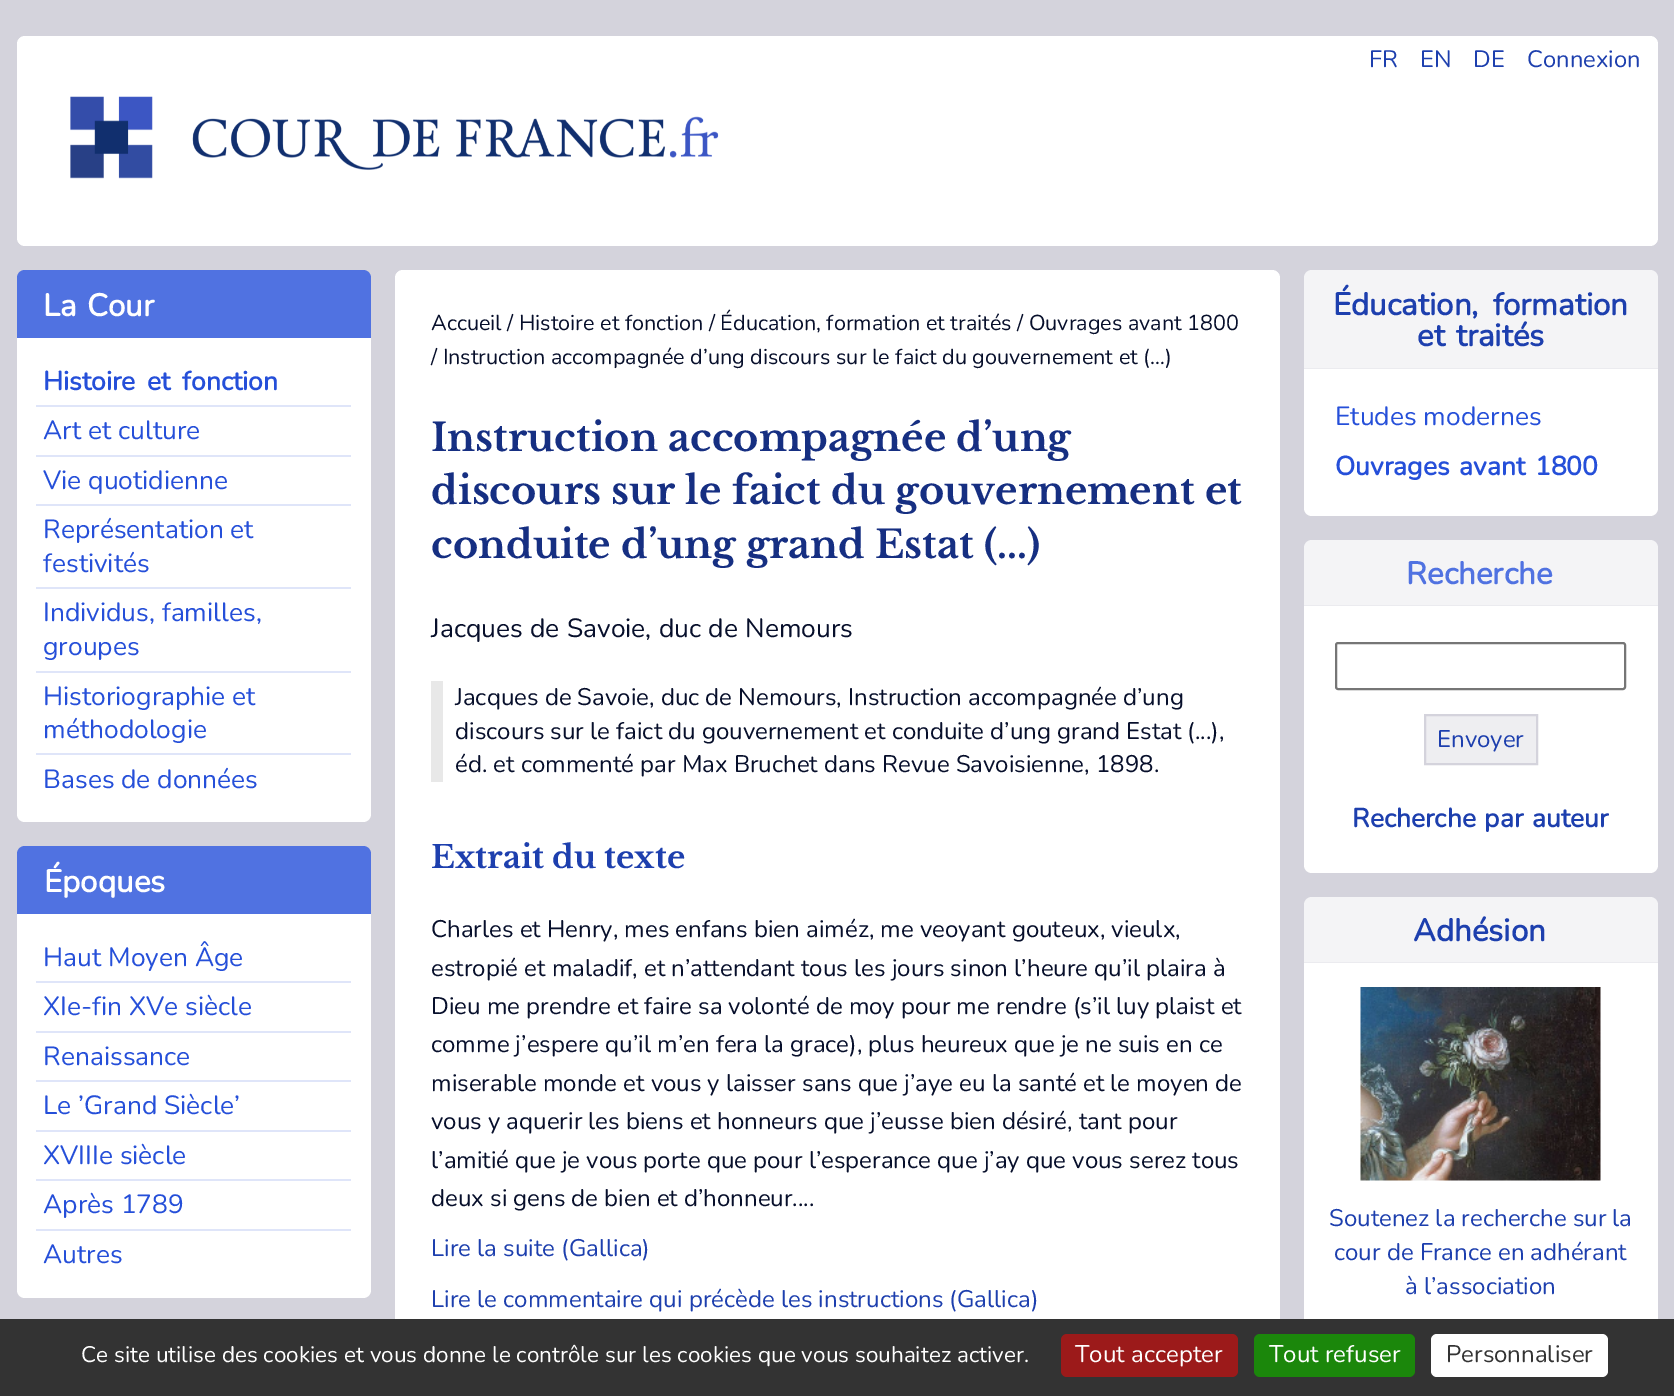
%!PS-Adobe-3.0
%%BoundingBox: 0 0 1674 1396
%%LanguageLevel: 3
%%Pages: 1
%%EndComments
%%BeginProlog
/setink { 3 { 255 div 3 1 roll } repeat setrgbcolor } def
/usefont { [ exch dup neg 0 0 3 -1 roll 0 0 ] selectfont } def
/drawtext { setink usefont moveto show } def
/fillbox { setink rectfill } def
/rrect { 5 dict begin { /r /h /w /y /x } { exch def } forall
  x r add y moveto x w add y 2 copy h add r arct x w add y h add x 1 index r arct
  x y h add x y r arct x y 2 copy exch w add exch r arct closepath end } def
/drawimage { 5 dict begin { /h /w /y /x /name } { exch def } forall
  gsave x y translate w h scale
  w h 8 [w 0 0 h 0 0] name (r) file false 3 colorimage grestore end } def
%%EndProlog
%%BeginSetup
<< /PageSize [1674 1396] >> setpagedevice
%%EndSetup
%%Page: 1 1
0 1396 translate 1 -1 scale
4 setmiterlimit
0 0 1674 1396 212 211 220 fillbox
255 255 255 setink
17 36 1641 210 8 rrect fill
(FR) 1369 67 /Nunito-Regular 23.75 29 63 174 drawtext
(EN) 1420 67 /Nunito-Regular 23.75 29 63 174 drawtext
(DE) 1473 67 /Nunito-Regular 23.75 29 63 174 drawtext
(Connexion) 1527 67 /Nunito-Regular 23.75 29 63 174 drawtext
(assets/img1.rgb) 70 96 649 83 drawimage
80 114 225 setink
25 270 moveto 363 270 lineto 367.5 270 371 273.5 371 278 curveto 371 338 lineto 17 338 lineto 17 278 lineto 17 273.5 20.5 270 25 270 curveto closepath fill
/Nunito-Bold 31.25 usefont
255 255 255 setink
43 316 moveto 2 0 32 (La Cour) widthshow
17 338 moveto 371 338 lineto 371 814 lineto 371 818.5 367.5 822 363 822 curveto 25 822 lineto 20.5 822 17 818.5 17 814 curveto closepath fill
/Nunito-Bold 26.4 usefont
37 79 217 setink
43 390 moveto 5 0 32 (Histoire et fonction) widthshow
36 405 315 2 223 229 249 fillbox
(Art et culture) 43 439 /Nunito-Regular 26.4 37 79 217 drawtext
36 455 315 2 223 229 249 fillbox
(Vie quotidienne) 43 489 /Nunito-Regular 26.4 37 79 217 drawtext
36 504 315 2 223 229 249 fillbox
(Représentation et) 43 538 /Nunito-Regular 26.4 37 79 217 drawtext
(festivités) 43 572 /Nunito-Regular 26.4 37 79 217 drawtext
36 587 315 2 223 229 249 fillbox
(Individus, familles,) 43 621 /Nunito-Regular 26.4 37 79 217 drawtext
(groupes) 43 655 /Nunito-Regular 26.4 37 79 217 drawtext
36 671 315 2 223 229 249 fillbox
(Historiographie et) 43 705 /Nunito-Regular 26.4 37 79 217 drawtext
(méthodologie) 43 738 /Nunito-Regular 26.4 37 79 217 drawtext
36 753 315 2 223 229 249 fillbox
(Bases de données) 43 788 /Nunito-Regular 26.4 37 79 217 drawtext
80 114 225 setink
25 846 moveto 363 846 lineto 367.5 846 371 849.5 371 854 curveto 371 914 lineto 17 914 lineto 17 854 lineto 17 849.5 20.5 846 25 846 curveto closepath fill
(Époques) 44 892 /Nunito-Bold 31.25 255 255 255 drawtext
17 914 moveto 371 914 lineto 371 1290 lineto 371 1294.5 367.5 1298 363 1298 curveto 25 1298 lineto 20.5 1298 17 1294.5 17 1290 curveto closepath fill
(Haut Moyen Âge) 43 966 /Nunito-Regular 26.4 37 79 217 drawtext
36 981 315 2 223 229 249 fillbox
(XIe-fin XVe siècle) 43 1015 /Nunito-Regular 26.4 37 79 217 drawtext
36 1031 315 2 223 229 249 fillbox
(Renaissance) 43 1065 /Nunito-Regular 26.4 37 79 217 drawtext
36 1080 315 2 223 229 249 fillbox
(Le ’Grand Siècle’) 43 1114 /Nunito-Regular 26.4 37 79 217 drawtext
36 1130 315 2 223 229 249 fillbox
(XVIIIe siècle) 43 1164 /Nunito-Regular 26.4 37 79 217 drawtext
36 1179 315 2 223 229 249 fillbox
(Après 1789) 43 1213 /Nunito-Regular 26.4 37 79 217 drawtext
36 1229 315 2 223 229 249 fillbox
(Autres) 43 1263 /Nunito-Regular 26.4 37 79 217 drawtext
255 255 255 setink
395 270 885 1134 8 rrect fill
(Accueil / Histoire et fonction / Éducation, formation et traités / Ouvrages avant 1800) 431 330 /Nunito-Regular 21.6 7 15 43 drawtext
(/ Instruction accompagnée d’ung discours sur le faict du gouvernement et \(…\)) 431 364 /Nunito-Regular 21.6 7 15 43 drawtext
(Instruction accompagnée d’ung) 431 451 /LibreBaskerville-Bold 38.4 22 47 130 drawtext
(discours sur le faict du gouvernement et) 431 504 /LibreBaskerville-Bold 38.4 22 47 130 drawtext
(conduite d’ung grand Estat \(...\)) 431 558 /LibreBaskerville-Bold 38.4 22 47 130 drawtext
/Nunito-Regular 26.4 usefont
7 15 43 setink
431 637 moveto 0.5 0 32 (Jacques de Savoie, duc de Nemours) widthshow
431 681 12 101 232 232 232 fillbox
(Jacques de Savoie, duc de Nemours, Instruction accompagnée d’ung) 455 705 /Nunito-Regular 24 7 15 43 drawtext
(discours sur le faict du gouvernement et conduite d’ung grand Estat \(...\),) 455 739 /Nunito-Regular 24 7 15 43 drawtext
(éd. et commenté par Max Bruchet dans Revue Savoisienne, 1898.) 455 772 /Nunito-Regular 24 7 15 43 drawtext
(Extrait du texte) 431 868 /LibreBaskerville-Bold 31.25 29 63 174 drawtext
(Charles et Henry, mes enfans bien aiméz, me veoyant gouteux, vieulx,) 431 937 /Nunito-Regular 24 7 15 43 drawtext
(estropié et maladif, et n’attendant tous les jours sinon l’heure qu’il plaira à) 431 976 /Nunito-Regular 24 7 15 43 drawtext
(Dieu me prendre et faire sa volonté de moy pour me rendre \(s’il luy plaist et) 431 1014 /Nunito-Regular 24 7 15 43 drawtext
(comme j’espere qu’il m’en fera la grace\), plus heureux que je ne suis en ce) 431 1052 /Nunito-Regular 24 7 15 43 drawtext
(miserable monde et vous y laisser sans que j’aye eu la santé et le moyen de) 431 1091 /Nunito-Regular 24 7 15 43 drawtext
(vous y aquerir les biens et honneurs que j’eusse bien désiré, tant pour) 431 1129 /Nunito-Regular 24 7 15 43 drawtext
(l’amitié que je vous porte que pour l’esperance que j’ay que vous serez tous) 431 1168 /Nunito-Regular 24 7 15 43 drawtext
(deux si gens de bien et d’honneur....) 431 1206 /Nunito-Regular 24 7 15 43 drawtext
(Lire la suite \(Gallica\)) 431 1256 /Nunito-Regular 24 29 63 174 drawtext
(Lire le commentaire qui précède les instructions \(Gallica\)) 431 1307 /Nunito-Regular 24 29 63 174 drawtext
244 244 246 setink
1312 270 moveto 1650 270 lineto 1654.5 270 1658 273.5 1658 278 curveto 1658 369 lineto 1304 369 lineto 1304 278 lineto 1304 273.5 1307.5 270 1312 270 curveto closepath fill
1304 368 354 1 235 235 239 fillbox
/Nunito-Bold 31.25 usefont
29 63 174 setink
1333 315 moveto 6 0 32 (Éducation, formation) widthshow
1417 346 moveto 3 0 32 (et traités) widthshow
255 255 255 setink
1304 369 moveto 1658 369 lineto 1658 508 lineto 1658 512.5 1654.5 516 1650 516 curveto 1312 516 lineto 1307.5 516 1304 512.5 1304 508 curveto closepath fill
(Etudes modernes) 1335 425 /Nunito-Regular 26.4 37 79 217 drawtext
/Nunito-Bold 26.4 usefont
1335 475 moveto 3 0 32 (Ouvrages avant 1800) widthshow
244 244 246 setink
1312 540 moveto 1650 540 lineto 1654.5 540 1658 543.5 1658 548 curveto 1658 606 lineto 1304 606 lineto 1304 548 lineto 1304 543.5 1307.5 540 1312 540 curveto closepath fill
1304 605 354 1 235 235 239 fillbox
(Recherche) 1406 584 /Nunito-Bold 31.25 80 114 225 drawtext
255 255 255 setink
1304 606 moveto 1658 606 lineto 1658 865 lineto 1658 869.5 1654.5 873 1650 873 curveto 1312 873 lineto 1307.5 873 1304 869.5 1304 865 curveto closepath fill
118 118 118 setink
2 setlinewidth
1336 643 289 46 2 rrect stroke
238 238 241 setink
1425 715 moveto 1537 715 lineto 1537 764 lineto 1425 764 lineto closepath gsave fill grestore
212 211 220 setink
stroke
(Envoyer) 1437 747 /Nunito-Regular 24 29 63 174 drawtext
/Nunito-Bold 26.4 usefont
1352 827 moveto 2 0 32 (Recherche par auteur) widthshow
244 244 246 setink
1312 897 moveto 1650 897 lineto 1654.5 897 1658 900.5 1658 905 curveto 1658 963 lineto 1304 963 lineto 1304 905 lineto 1304 900.5 1307.5 897 1312 897 curveto closepath fill
1304 962 354 1 235 235 239 fillbox
(Adhésion) 1413 941 /Nunito-Bold 31.25 29 63 174 drawtext
1304 963 354 356 255 255 255 fillbox
(assets/img2.rgb) 1360 987 241 194 drawimage
(Soutenez la recherche sur la) 1329 1226 /Nunito-Regular 24 29 63 174 drawtext
(cour de France en adhérant) 1334 1260 /Nunito-Regular 24 29 63 174 drawtext
(à l’association) 1405 1294 /Nunito-Regular 24 29 63 174 drawtext
0 1319 1674 77 51 51 51 fillbox
(Ce site utilise des cookies et vous donne le contrôle sur les cookies que vous souhaitez activer.) 81 1362 /Nunito-Regular 22.5 255 255 255 drawtext
156 26 26 setink
1061 1334 177 43 6 rrect fill
(Tout accepter) 1075 1362 /Nunito-Regular 24 255 255 255 drawtext
27 135 11 setink
1254 1334 161 43 6 rrect fill
(Tout refuser) 1269 1362 /Nunito-Regular 24 255 255 255 drawtext
1431 1334 177 43 6 rrect fill
(Personnaliser) 1446 1362 /Nunito-Regular 24 51 51 51 drawtext
showpage
%%EOF
